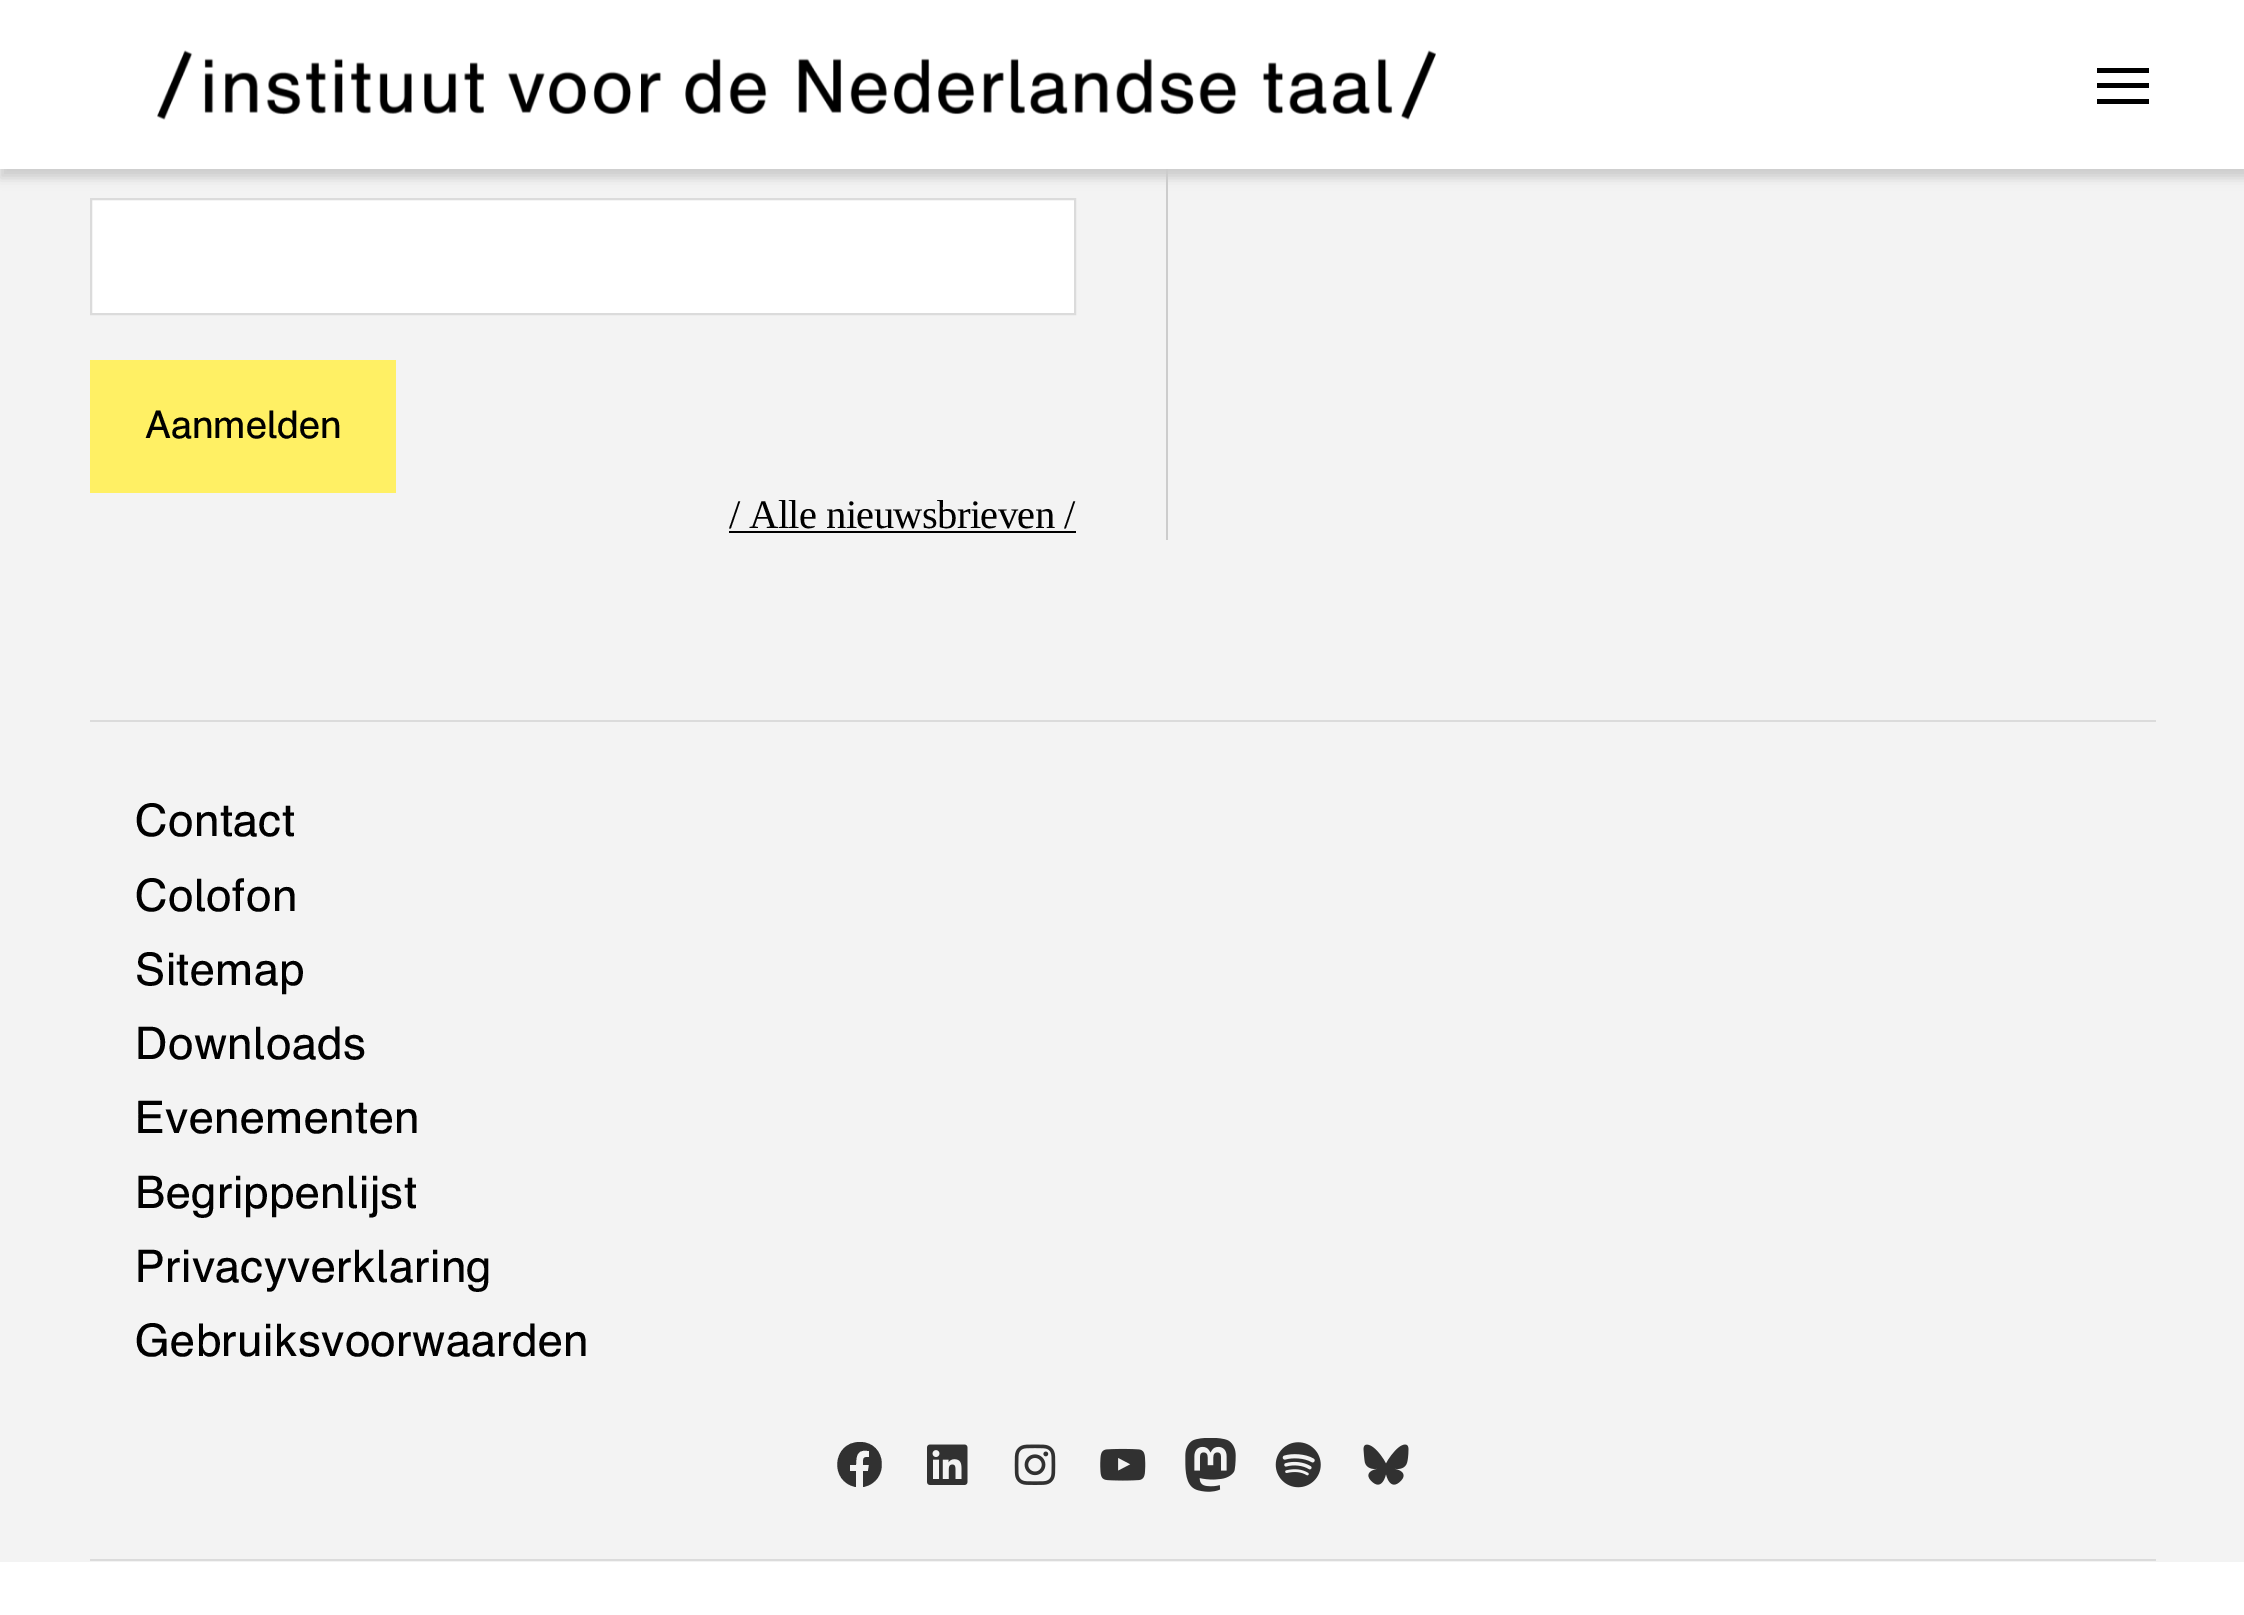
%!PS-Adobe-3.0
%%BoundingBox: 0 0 2244 1615
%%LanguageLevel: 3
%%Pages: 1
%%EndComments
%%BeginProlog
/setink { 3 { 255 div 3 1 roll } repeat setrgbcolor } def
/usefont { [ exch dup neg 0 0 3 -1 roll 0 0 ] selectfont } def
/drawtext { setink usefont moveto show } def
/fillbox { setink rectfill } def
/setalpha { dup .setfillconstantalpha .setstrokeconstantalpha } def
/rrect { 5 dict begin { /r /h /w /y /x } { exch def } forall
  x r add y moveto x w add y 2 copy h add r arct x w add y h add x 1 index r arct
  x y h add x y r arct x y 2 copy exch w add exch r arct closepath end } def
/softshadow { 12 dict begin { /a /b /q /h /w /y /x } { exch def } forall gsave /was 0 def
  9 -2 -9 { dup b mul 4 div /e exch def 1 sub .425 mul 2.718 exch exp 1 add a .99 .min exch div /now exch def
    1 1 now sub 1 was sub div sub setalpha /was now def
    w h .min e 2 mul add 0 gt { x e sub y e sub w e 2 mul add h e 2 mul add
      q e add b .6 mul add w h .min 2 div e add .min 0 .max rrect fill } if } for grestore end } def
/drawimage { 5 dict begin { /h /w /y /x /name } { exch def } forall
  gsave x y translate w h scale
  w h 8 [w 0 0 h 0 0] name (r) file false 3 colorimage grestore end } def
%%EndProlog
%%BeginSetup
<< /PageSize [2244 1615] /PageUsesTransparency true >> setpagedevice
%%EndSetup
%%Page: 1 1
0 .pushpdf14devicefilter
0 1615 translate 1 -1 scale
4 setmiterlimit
0 0 2244 1615 255 255 255 fillbox
0 169 2244 1393 243 243 243 fillbox
1166 169 2 371 204 204 204 fillbox
0 5 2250 173 0 5.5 1 softshadow
0 0 2244 169 255 255 255 fillbox
(assets/img1.rgb) 157 50 1279 70 drawimage
2097 68 52 5 0 0 0 fillbox
2097 99 52 5 0 0 0 fillbox
2097 83 52 5 0 0 0 fillbox
90 720 2066 2 219 219 219 fillbox
255 255 255 setink
91 199 moveto 1075 199 lineto 1075 314 lineto 91 314 lineto closepath gsave fill grestore
219 219 219 setink
2 setlinewidth
stroke
90 360 306 133 255 240 100 fillbox
(Aanmelden) 145 438 /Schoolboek-Regular 38.25 0 0 0 drawtext
/LiberationSerif-Regular 40.5 usefont
729 528 moveto -0.6 0 (/ Alle nieuwsbrieven /) ashow
729 531 347 2 0 0 0 fillbox
90 1559 2066 2 219 219 219 fillbox
/Schoolboek-Regular 45 usefont
0 0 0 setink
135 836 moveto 0.5 0 (Contact) ashow
135 911 moveto 0.5 0 (Colofon) ashow
135 985 moveto 0.5 0 (Sitemap) ashow
135 1059 moveto 0.5 0 (Downloads) ashow
135 1133 moveto 0.5 0 (Evenementen) ashow
135 1208 moveto 0.5 0 (Begrippenlijst) ashow
135 1282 moveto 0.5 0 (Privacyverklaring) ashow
135 1356 moveto 0.5 0 (Gebruiksvoorwaarden) ashow
49 49 49 setink
860 1442 moveto 832 1442 829 1482 856 1487 curveto 856 1471 lineto 850 1471 lineto 850 1465 lineto 856 1465 lineto 856 1454 858 1449 869 1451 curveto 869 1457 lineto 863 1457 863 1458 863 1465 curveto 869 1465 lineto 868 1471 lineto 863 1471 lineto 863 1487 lineto 890 1482 887 1442 860 1442 curveto closepath fill
(assets/img2.rgb) 927 1444 41 41 drawimage
(assets/img3.rgb) 1014 1444 42 41 drawimage
(assets/img4.rgb) 1100 1448 46 33 drawimage
(assets/img5.rgb) 1185 1438 51 54 drawimage
(assets/img6.rgb) 1275 1442 46 46 drawimage
(assets/img7.rgb) 1363 1444 46 41 drawimage
.poppdf14devicefilter showpage
%%EOF
